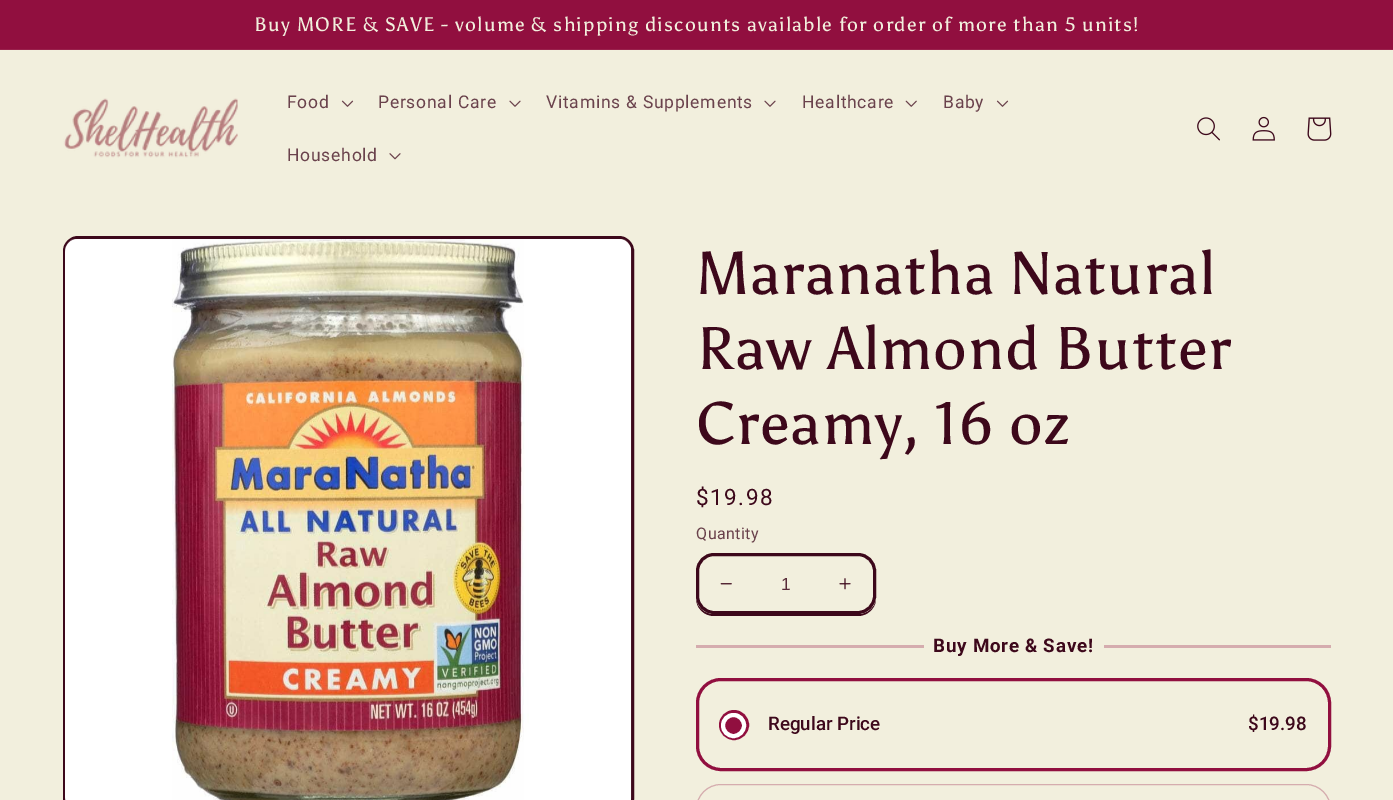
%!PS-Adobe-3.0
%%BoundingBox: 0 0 1393 800
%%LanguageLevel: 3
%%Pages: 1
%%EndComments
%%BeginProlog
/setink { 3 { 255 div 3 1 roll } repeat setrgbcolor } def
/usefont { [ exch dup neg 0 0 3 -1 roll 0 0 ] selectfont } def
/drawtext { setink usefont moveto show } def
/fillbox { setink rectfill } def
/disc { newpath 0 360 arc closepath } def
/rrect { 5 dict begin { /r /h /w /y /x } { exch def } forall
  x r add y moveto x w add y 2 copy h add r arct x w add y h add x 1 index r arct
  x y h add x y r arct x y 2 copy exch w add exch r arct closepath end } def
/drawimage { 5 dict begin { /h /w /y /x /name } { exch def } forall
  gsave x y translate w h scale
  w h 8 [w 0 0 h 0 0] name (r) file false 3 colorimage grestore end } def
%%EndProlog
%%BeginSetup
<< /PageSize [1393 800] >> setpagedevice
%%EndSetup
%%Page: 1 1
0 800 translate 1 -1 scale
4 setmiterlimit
0 0 1393 800 242 239 221 fillbox
0 0 1393 49 145 15 63 fillbox
0 49 1393 1 153 33 76 fillbox
/Asul-Regular 19.5 usefont
242 239 221 setink
254 31 moveto 1.25 0 (Buy MORE & SAVE - volume & shipping discounts available for order of more than 5 units!) ashow
(assets/img1.rgb) 63 98 175 60 drawimage
/Roboto-Regular 17.5 usefont
106 66 76 setink
287 108 moveto 0.75 0 (Food) ashow
(assets/img2.rgb) 341 100 13 7 drawimage
378 108 moveto 0.75 0 (Personal Care) ashow
(assets/img3.rgb) 509 100 12 7 drawimage
546 108 moveto 0.75 0 (Vitamins & Supplements) ashow
(assets/img3.rgb) 764 100 12 7 drawimage
802 108 moveto 0.75 0 (Healthcare) ashow
(assets/img4.rgb) 905 100 12 7 drawimage
943 108 moveto 0.75 0 (Baby) ashow
(assets/img2.rgb) 996 100 13 7 drawimage
287 161 moveto 0.75 0 (Household) ashow
(assets/img5.rgb) 389 153 12 7 drawimage
(assets/img6.rgb) 1197 117 23 24 drawimage
(assets/img7.rgb) 1252 116 23 25 drawimage
(assets/img8.rgb) 1307 117 25 24 drawimage
61 8 27 setink
3 setlinewidth
64.5 237.5 568 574 13.5 rrect stroke
(assets/img9.rgb) 65 239 567 561 drawimage
/Asul-Regular 60 usefont
696 294 moveto 0.9 0 (Maranatha Natural) ashow
696 369 moveto 0.9 0 (Raw Almond Butter) ashow
696 444 moveto 0.9 0 (Creamy, 16 oz) ashow
/Roboto-Regular 22.5 usefont
696 505 moveto 1.5 0 ($19.98) ashow
/Roboto-Regular 16 usefont
106 66 76 setink
696 539 moveto 0.5 0 (Quantity) ashow
61 8 27 setink
696 570 moveto 696 598 lineto 696 608 704 616 714 616 curveto 858 616 lineto 867 616 875 609 876 600 curveto 874 608 867 614 859 614 curveto 714 614 lineto 704 614 696 606 696 596 curveto closepath fill
242 239 221 setink
696 553 180 61 18 rrect fill
(assets/img10.rgb) 720 583 12 2 drawimage
(assets/img11.rgb) 839 578 12 12 drawimage
61 8 27 setink
697.5 554.5 177 58 16.5 rrect stroke
(1) 781 590 /LiberationSans-Regular 17.5 88 43 56 drawtext
696 645 228 3 213 172 174 fillbox
/Roboto-Bold 18.75 usefont
61 8 27 setink
933 652 moveto 0.75 0 (Buy More & Save!) ashow
1104 645 227 3 213 172 174 fillbox
145 15 63 setink
697.5 679.5 632 90 23.5 rrect stroke
734 725 13.5 disc stroke
733.5 725.5 10.5 disc gsave fill grestore
255 255 255 setink
4 setlinewidth
stroke
(Regular Price) 768 730 /Roboto-Medium 18.75 61 8 27 drawtext
($19.98) 1248 730 /Roboto-Medium 18.75 61 8 27 drawtext
213 172 174 setink
1 setlinewidth
696.5 784.5 634 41 24.5 rrect stroke
showpage
%%EOF
